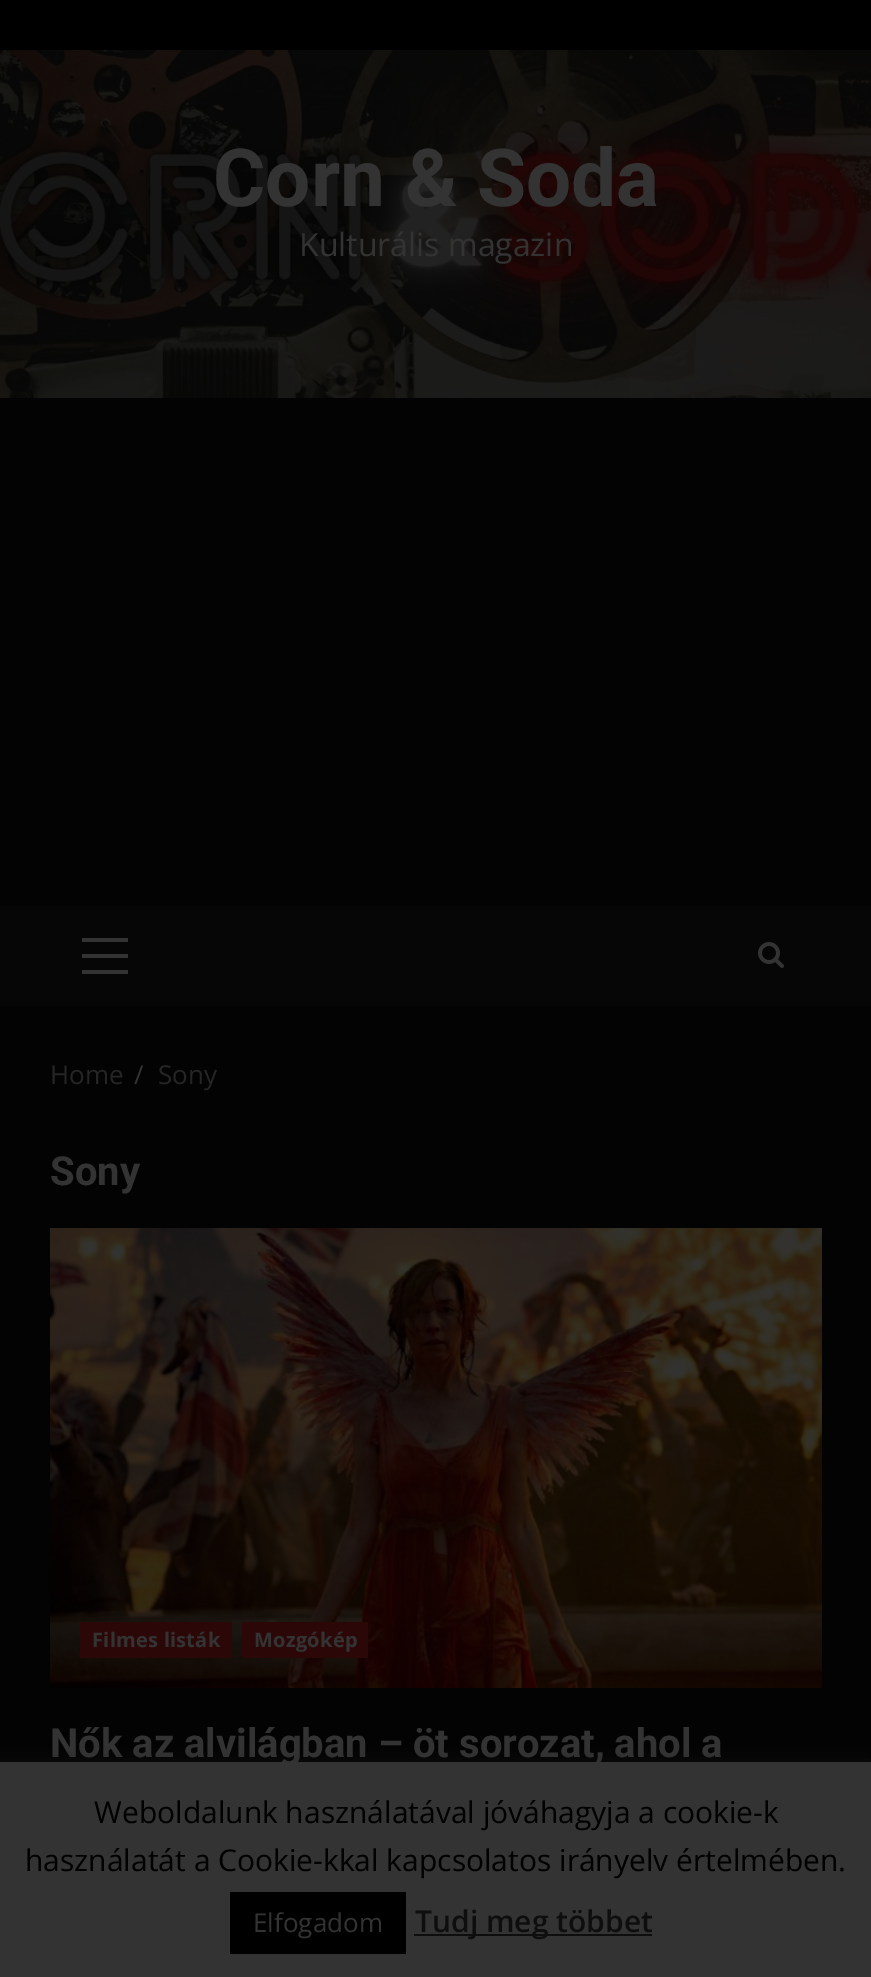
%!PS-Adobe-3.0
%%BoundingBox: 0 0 871 1977
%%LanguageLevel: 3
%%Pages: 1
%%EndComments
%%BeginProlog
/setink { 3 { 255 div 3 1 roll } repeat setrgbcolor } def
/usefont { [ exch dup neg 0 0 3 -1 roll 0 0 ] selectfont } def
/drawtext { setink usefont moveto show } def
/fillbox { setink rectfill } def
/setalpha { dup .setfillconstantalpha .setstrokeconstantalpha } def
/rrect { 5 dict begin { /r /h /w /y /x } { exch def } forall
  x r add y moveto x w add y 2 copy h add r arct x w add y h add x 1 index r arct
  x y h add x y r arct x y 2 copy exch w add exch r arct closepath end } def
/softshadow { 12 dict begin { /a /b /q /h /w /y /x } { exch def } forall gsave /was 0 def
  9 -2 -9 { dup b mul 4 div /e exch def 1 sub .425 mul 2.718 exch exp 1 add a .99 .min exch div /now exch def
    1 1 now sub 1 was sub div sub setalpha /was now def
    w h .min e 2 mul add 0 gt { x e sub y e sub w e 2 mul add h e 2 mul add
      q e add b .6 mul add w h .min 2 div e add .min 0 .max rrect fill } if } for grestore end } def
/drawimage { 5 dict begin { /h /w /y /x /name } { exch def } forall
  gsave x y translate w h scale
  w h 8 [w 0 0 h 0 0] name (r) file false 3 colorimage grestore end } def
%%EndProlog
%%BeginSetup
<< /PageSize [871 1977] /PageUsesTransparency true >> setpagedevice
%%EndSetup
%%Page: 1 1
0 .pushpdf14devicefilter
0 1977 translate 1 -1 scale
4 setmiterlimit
0 0 871 1977 0 0 0 fillbox
0 398 871 1364 3 3 3 fillbox
(assets/img1.rgb) 0 50 871 348 drawimage
(Corn & Soda) 213 206 /Roboto-Bold 80 51 51 51 drawtext
(Kulturális magazin) 299 256 /OpenSans-Regular 32 51 51 51 drawtext
0 906 871 100 6 6 6 fillbox
82 954 46 4 51 51 51 fillbox
82 938 46 4 51 51 51 fillbox
82 970 46 4 51 51 51 fillbox
(assets/img2.rgb) 758 942 26 26 drawimage
(Home) 50 1084 /OpenSans-Regular 26 37 37 37 drawtext
(/) 134 1084 /OpenSans-Regular 26 51 51 51 drawtext
(Sony) 158 1084 /OpenSans-Regular 26 37 37 37 drawtext
(Sony) 50 1185 /Roboto-Bold 40 51 51 51 drawtext
(assets/img3.rgb) 50 1228 772 460 drawimage
80 1622 152 36 43 8 7 fillbox
/OpenSans-Bold 20 usefont
51 51 51 setink
92 1647 moveto 0.25 0 (Filmes listák) ashow
242 1622 126 36 43 8 7 fillbox
51 51 51 setink
254 1647 moveto 0.25 0 (Mozgókép) ashow
(Nők az alvilágban – öt sorozat, ahol a) 50 1757 /Roboto-Bold 40 51 51 51 drawtext
34 34 34 setink
0 1760 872 216 0 10 0.3 softshadow
0 1762 871 215 51 51 51 fillbox
(Weboldalunk használatával jóváhagyja a cookie-k) 94 1823 /OpenSans-Regular 30 0 0 0 drawtext
(használatát a Cookie-kkal kapcsolatos irányelv értelmében.) 25 1871 /OpenSans-Regular 30 0 0 0 drawtext
230 1892 176 62 0 0 0 fillbox
(Elfogadom) 253 1932 /OpenSans-Regular 26 51 51 51 drawtext
414 1934 238 2 14 14 14 fillbox
(Tudj meg többet) 415 1932 /OpenSans-SemiBold 30 14 14 14 drawtext
.poppdf14devicefilter showpage
%%EOF
